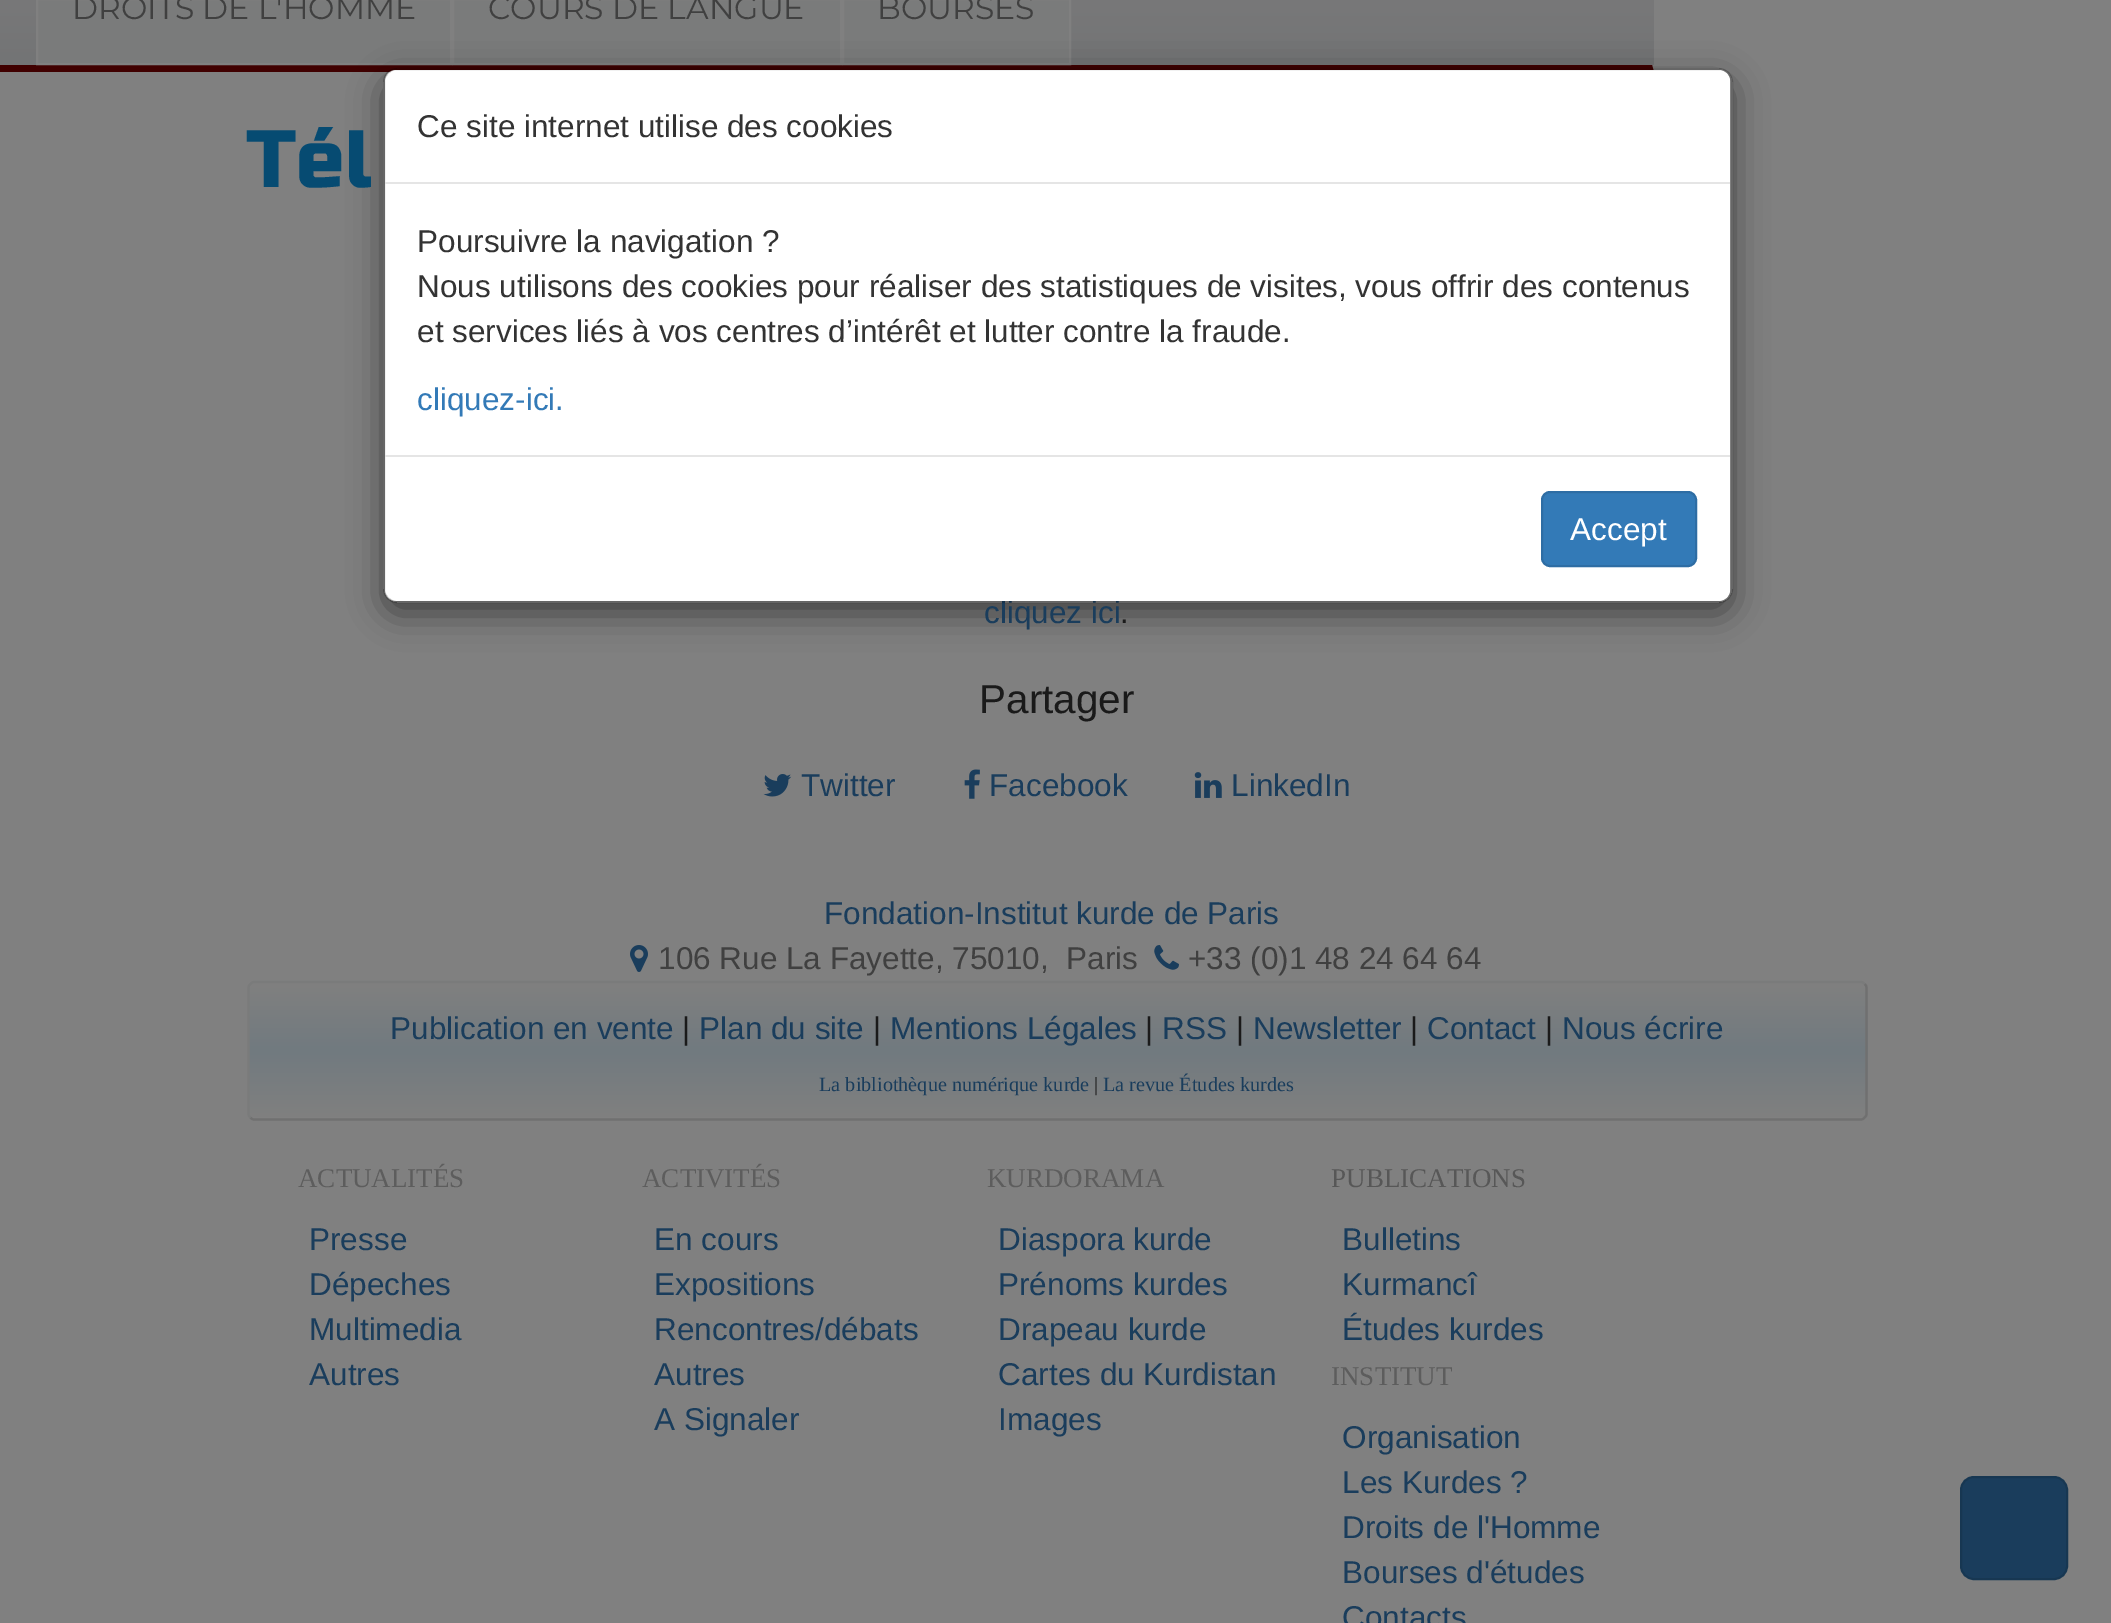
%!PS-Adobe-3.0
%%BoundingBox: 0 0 2111 1623
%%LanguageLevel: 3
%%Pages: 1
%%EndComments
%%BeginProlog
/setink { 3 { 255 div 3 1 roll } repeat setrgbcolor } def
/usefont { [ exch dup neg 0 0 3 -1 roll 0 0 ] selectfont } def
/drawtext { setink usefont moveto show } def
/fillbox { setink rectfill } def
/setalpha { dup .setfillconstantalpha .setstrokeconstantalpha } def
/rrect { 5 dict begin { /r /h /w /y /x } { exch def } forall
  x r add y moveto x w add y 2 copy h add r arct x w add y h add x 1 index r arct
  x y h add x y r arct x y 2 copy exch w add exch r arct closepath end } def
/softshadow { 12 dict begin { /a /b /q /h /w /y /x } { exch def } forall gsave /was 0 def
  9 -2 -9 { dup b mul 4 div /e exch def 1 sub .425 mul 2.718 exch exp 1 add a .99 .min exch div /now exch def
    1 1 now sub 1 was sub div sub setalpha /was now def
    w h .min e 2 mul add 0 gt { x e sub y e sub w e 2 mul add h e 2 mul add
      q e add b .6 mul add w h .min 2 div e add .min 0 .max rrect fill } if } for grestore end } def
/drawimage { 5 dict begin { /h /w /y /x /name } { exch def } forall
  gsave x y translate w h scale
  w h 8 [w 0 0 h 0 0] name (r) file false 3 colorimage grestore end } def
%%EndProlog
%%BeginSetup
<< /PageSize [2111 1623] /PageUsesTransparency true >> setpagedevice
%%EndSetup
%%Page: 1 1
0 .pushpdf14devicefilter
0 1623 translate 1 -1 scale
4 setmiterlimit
0 0 2111 1623 128 128 128 fillbox
gsave 0 0 moveto 1654 0 lineto 1654 65 lineto 0 65 lineto closepath clip newpath
<< /ShadingType 2 /ColorSpace /DeviceRGB /Coords [810 -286 810 65] /Extend [true true] /Function << /FunctionType 3 /Domain [0 1] /Functions [<< /FunctionType 2 /Domain [0 1] /C0 [0.502 0.502 0.502] /C1 [0.502 0.502 0.502] /N 1 >> << /FunctionType 2 /Domain [0 1] /C0 [0.502 0.502 0.502] /C1 [0.451 0.455 0.459] /N 1 >>] /Bounds [0.5] /Encode [0 1 0 1] >> >> shfill grestore
64 0 0 setink
1654 72 moveto -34 72 lineto -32 65 lineto 1652 65 lineto closepath fill
122 123 123 setink
37 -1 moveto 451 -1 lineto 451 64 lineto 37 64 lineto closepath gsave fill grestore
128 128 128 setink
2 setlinewidth
stroke
(DROITS DE L'HOMME) 72 19 /Montserrat-Regular 31.5 64 64 64 drawtext
122 123 123 setink
453 -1 moveto 841 -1 lineto 841 64 lineto 453 64 lineto closepath gsave fill grestore
128 128 128 setink
stroke
(COURS DE LANGUE) 488 19 /Montserrat-Regular 31.5 64 64 64 drawtext
122 123 123 setink
843 -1 moveto 1070 -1 lineto 1070 64 lineto 843 64 lineto closepath gsave fill grestore
128 128 128 setink
stroke
(BOURSES) 877 19 /Montserrat-Regular 31.5 64 64 64 drawtext
gsave
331 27 moveto 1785 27 lineto 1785 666 lineto 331 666 lineto closepath 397 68 moveto 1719 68 lineto 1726.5 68 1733 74.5 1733 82 curveto 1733 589 lineto 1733 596.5 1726.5 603 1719 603 curveto 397 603 lineto 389.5 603 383 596.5 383 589 curveto 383 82 lineto 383 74.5 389.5 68 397 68 curveto closepath eoclip newpath
0 0 0 setink
383 79 1350 535 14 17 0.5 softshadow
grestore
(cliquez ici) 984 623 /LiberationSans-Regular 31.5 26 61 92 drawtext
255 255 255 setink
385 70 1345 531 11 rrect fill
0.2 setalpha
0 0 0 setink
384 69 1348 533 13 rrect stroke
1 setalpha
385 182 1345 2 229 229 229 fillbox
(Ce site internet utilise des cookies) 417 137 /LiberationSans-Regular 31.5 51 51 51 drawtext
(Poursuivre la navigation ?) 417 252 /LiberationSans-Regular 31.5 51 51 51 drawtext
(Nous utilisons des cookies pour réaliser des statistiques de visites, vous offrir des contenus) 417 297 /LiberationSans-Regular 31.5 51 51 51 drawtext
(et services liés à vos centres d’intérêt et lutter contre la fraude.) 417 342 /LiberationSans-Regular 31.5 51 51 51 drawtext
(cliquez-ici.) 417 410 /LiberationSans-Regular 31.5 51 122 183 drawtext
385 455 1345 2 229 229 229 fillbox
51 122 183 setink
1542 492 154 74 8 rrect gsave fill grestore
46 109 164 setink
stroke
(Accept) 1570 540 /LiberationSans-Regular 31.5 255 255 255 drawtext
(Tél) 246 187 /RussoOne-Regular 81 6 75 114 drawtext
(.) 1120 623 /LiberationSans-Regular 31.5 26 26 26 drawtext
(Partager) 979 713 /LiberationSans-Regular 40.5 26 26 26 drawtext
(assets/img1.rgb) 763 774 29 23 drawimage
(Twitter) 801 796 /LiberationSans-Regular 31.5 26 61 92 drawtext
(assets/img2.rgb) 964 769 16 30 drawimage
(Facebook) 989 796 /LiberationSans-Regular 31.5 26 61 92 drawtext
(assets/img3.rgb) 1194 772 28 26 drawimage
(LinkedIn) 1231 796 /LiberationSans-Regular 31.5 26 61 92 drawtext
(Fondation-Institut kurde de Paris) 824 924 /LiberationSans-Regular 31.5 26 61 92 drawtext
(assets/img4.rgb) 630 945 18 27 drawimage
(106 Rue La Fayette, 75010,) 658 969 /LiberationSans-Regular 31.5 64 64 64 drawtext
(Paris) 1066 969 /LiberationSans-Regular 31.5 64 64 64 drawtext
(assets/img5.rgb) 1154 945 25 25 drawimage
(+33 \(0\)1 48 24 64 64) 1188 969 /LiberationSans-Regular 31.5 64 64 64 drawtext
gsave
248 981 1620 140 7 rrect clip newpath
gsave 248 983 moveto 1868 983 lineto 1868 1118 lineto 248 1118 lineto closepath clip newpath
<< /ShadingType 2 /ColorSpace /DeviceRGB /Coords [1058 983 1058 1118] /Extend [true true] /Function << /FunctionType 3 /Domain [0 1] /Functions [<< /FunctionType 2 /Domain [0 1] /C0 [0.502 0.502 0.502] /C1 [0.443 0.478 0.498] /N 1 >> << /FunctionType 2 /Domain [0 1] /C0 [0.443 0.478 0.498] /C1 [0.502 0.502 0.502] /N 1 >>] /Bounds [0.5] /Encode [0 1 0 1] >> >> shfill grestore
grestore
112 112 112 setink
2.2 setlinewidth
1864.5 984 moveto 1866 985 1866.5 986.5 1866.5 988 curveto 1866.5 1114 lineto 1866.5 1115 1866 1116.5 1864.5 1117.5 curveto 1863.5 1119 1862 1119.5 1861 1119.5 curveto 254 1119.5 lineto 253 1119.5 251.5 1119 250.5 1117.5 curveto stroke
122 123 123 setink
250.5 1117.5 moveto 249 1116.5 248.5 1115 248.5 1114 curveto 248.5 988 lineto 248.5 986.5 249 985 250.5 984 curveto 251.5 982.5 253 982 254 982 curveto 1861 982 lineto 1862 982 1863.5 982.5 1864.5 984 curveto stroke
(Publication en vente) 390 1039 /LiberationSans-Regular 31.5 26 61 92 drawtext
(|) 682 1039 /LiberationSans-Regular 31.5 26 26 26 drawtext
(Plan du site) 699 1039 /LiberationSans-Regular 31.5 26 61 92 drawtext
(|) 873 1039 /LiberationSans-Regular 31.5 26 26 26 drawtext
(Mentions Légales) 890 1039 /LiberationSans-Regular 31.5 26 61 92 drawtext
(|) 1145 1039 /LiberationSans-Regular 31.5 26 26 26 drawtext
(RSS) 1162 1039 /LiberationSans-Regular 31.5 26 61 92 drawtext
(|) 1236 1039 /LiberationSans-Regular 31.5 26 26 26 drawtext
(Newsletter) 1253 1039 /LiberationSans-Regular 31.5 26 61 92 drawtext
(|) 1410 1039 /LiberationSans-Regular 31.5 26 26 26 drawtext
(Contact) 1427 1039 /LiberationSans-Regular 31.5 26 61 92 drawtext
(|) 1545 1039 /LiberationSans-Regular 31.5 26 26 26 drawtext
(Nous écrire) 1562 1039 /LiberationSans-Regular 31.5 26 61 92 drawtext
(La bibliothèque numérique kurde) 819 1091 /LiberationSerif-Regular 20.25 26 61 92 drawtext
(|) 1094 1091 /LiberationSerif-Regular 20.25 26 26 26 drawtext
(La revue Études kurdes) 1103 1091 /LiberationSerif-Regular 20.25 26 61 92 drawtext
(ACTUALITÉS) 298 1187 /LiberationSerif-Regular 27 93 93 93 drawtext
(Presse) 309 1250 /LiberationSans-Regular 31.5 26 61 92 drawtext
(Dépeches) 309 1295 /LiberationSans-Regular 31.5 26 61 92 drawtext
(Multimedia) 309 1340 /LiberationSans-Regular 31.5 26 61 92 drawtext
(Autres) 309 1385 /LiberationSans-Regular 31.5 26 61 92 drawtext
(ACTIVITÉS) 642 1187 /LiberationSerif-Regular 27 93 93 93 drawtext
(En cours) 654 1250 /LiberationSans-Regular 31.5 26 61 92 drawtext
(Expositions) 654 1295 /LiberationSans-Regular 31.5 26 61 92 drawtext
(Rencontres/débats) 654 1340 /LiberationSans-Regular 31.5 26 61 92 drawtext
(Autres) 654 1385 /LiberationSans-Regular 31.5 26 61 92 drawtext
(A Signaler) 654 1430 /LiberationSans-Regular 31.5 26 61 92 drawtext
(KURDORAMA) 987 1187 /LiberationSerif-Regular 27 93 93 93 drawtext
(Diaspora kurde) 998 1250 /LiberationSans-Regular 31.5 26 61 92 drawtext
(Prénoms kurdes) 998 1295 /LiberationSans-Regular 31.5 26 61 92 drawtext
(Drapeau kurde) 998 1340 /LiberationSans-Regular 31.5 26 61 92 drawtext
(Cartes du Kurdistan) 998 1385 /LiberationSans-Regular 31.5 26 61 92 drawtext
(Images) 998 1430 /LiberationSans-Regular 31.5 26 61 92 drawtext
(PUBLICATIONS) 1331 1187 /LiberationSerif-Regular 27 87 87 87 drawtext
(Bulletins) 1342 1250 /LiberationSans-Regular 31.5 26 61 92 drawtext
(Kurmancî) 1342 1295 /LiberationSans-Regular 31.5 26 61 92 drawtext
(Études kurdes) 1342 1340 /LiberationSans-Regular 31.5 26 61 92 drawtext
(INSTITUT) 1331 1385 /LiberationSerif-Regular 27 93 93 93 drawtext
(Organisation) 1342 1448 /LiberationSans-Regular 31.5 26 61 92 drawtext
(Les Kurdes ?) 1342 1493 /LiberationSans-Regular 31.5 26 61 92 drawtext
(Droits de l'Homme) 1342 1538 /LiberationSans-Regular 31.5 26 61 92 drawtext
(Bourses d'études) 1342 1583 /LiberationSans-Regular 31.5 26 61 92 drawtext
(Contacts) 1342 1628 /LiberationSans-Regular 31.5 26 61 92 drawtext
1961 1477 106 102 13 rrect gsave fill grestore
23 55 82 setink
2 setlinewidth
stroke
.poppdf14devicefilter showpage
%%EOF
